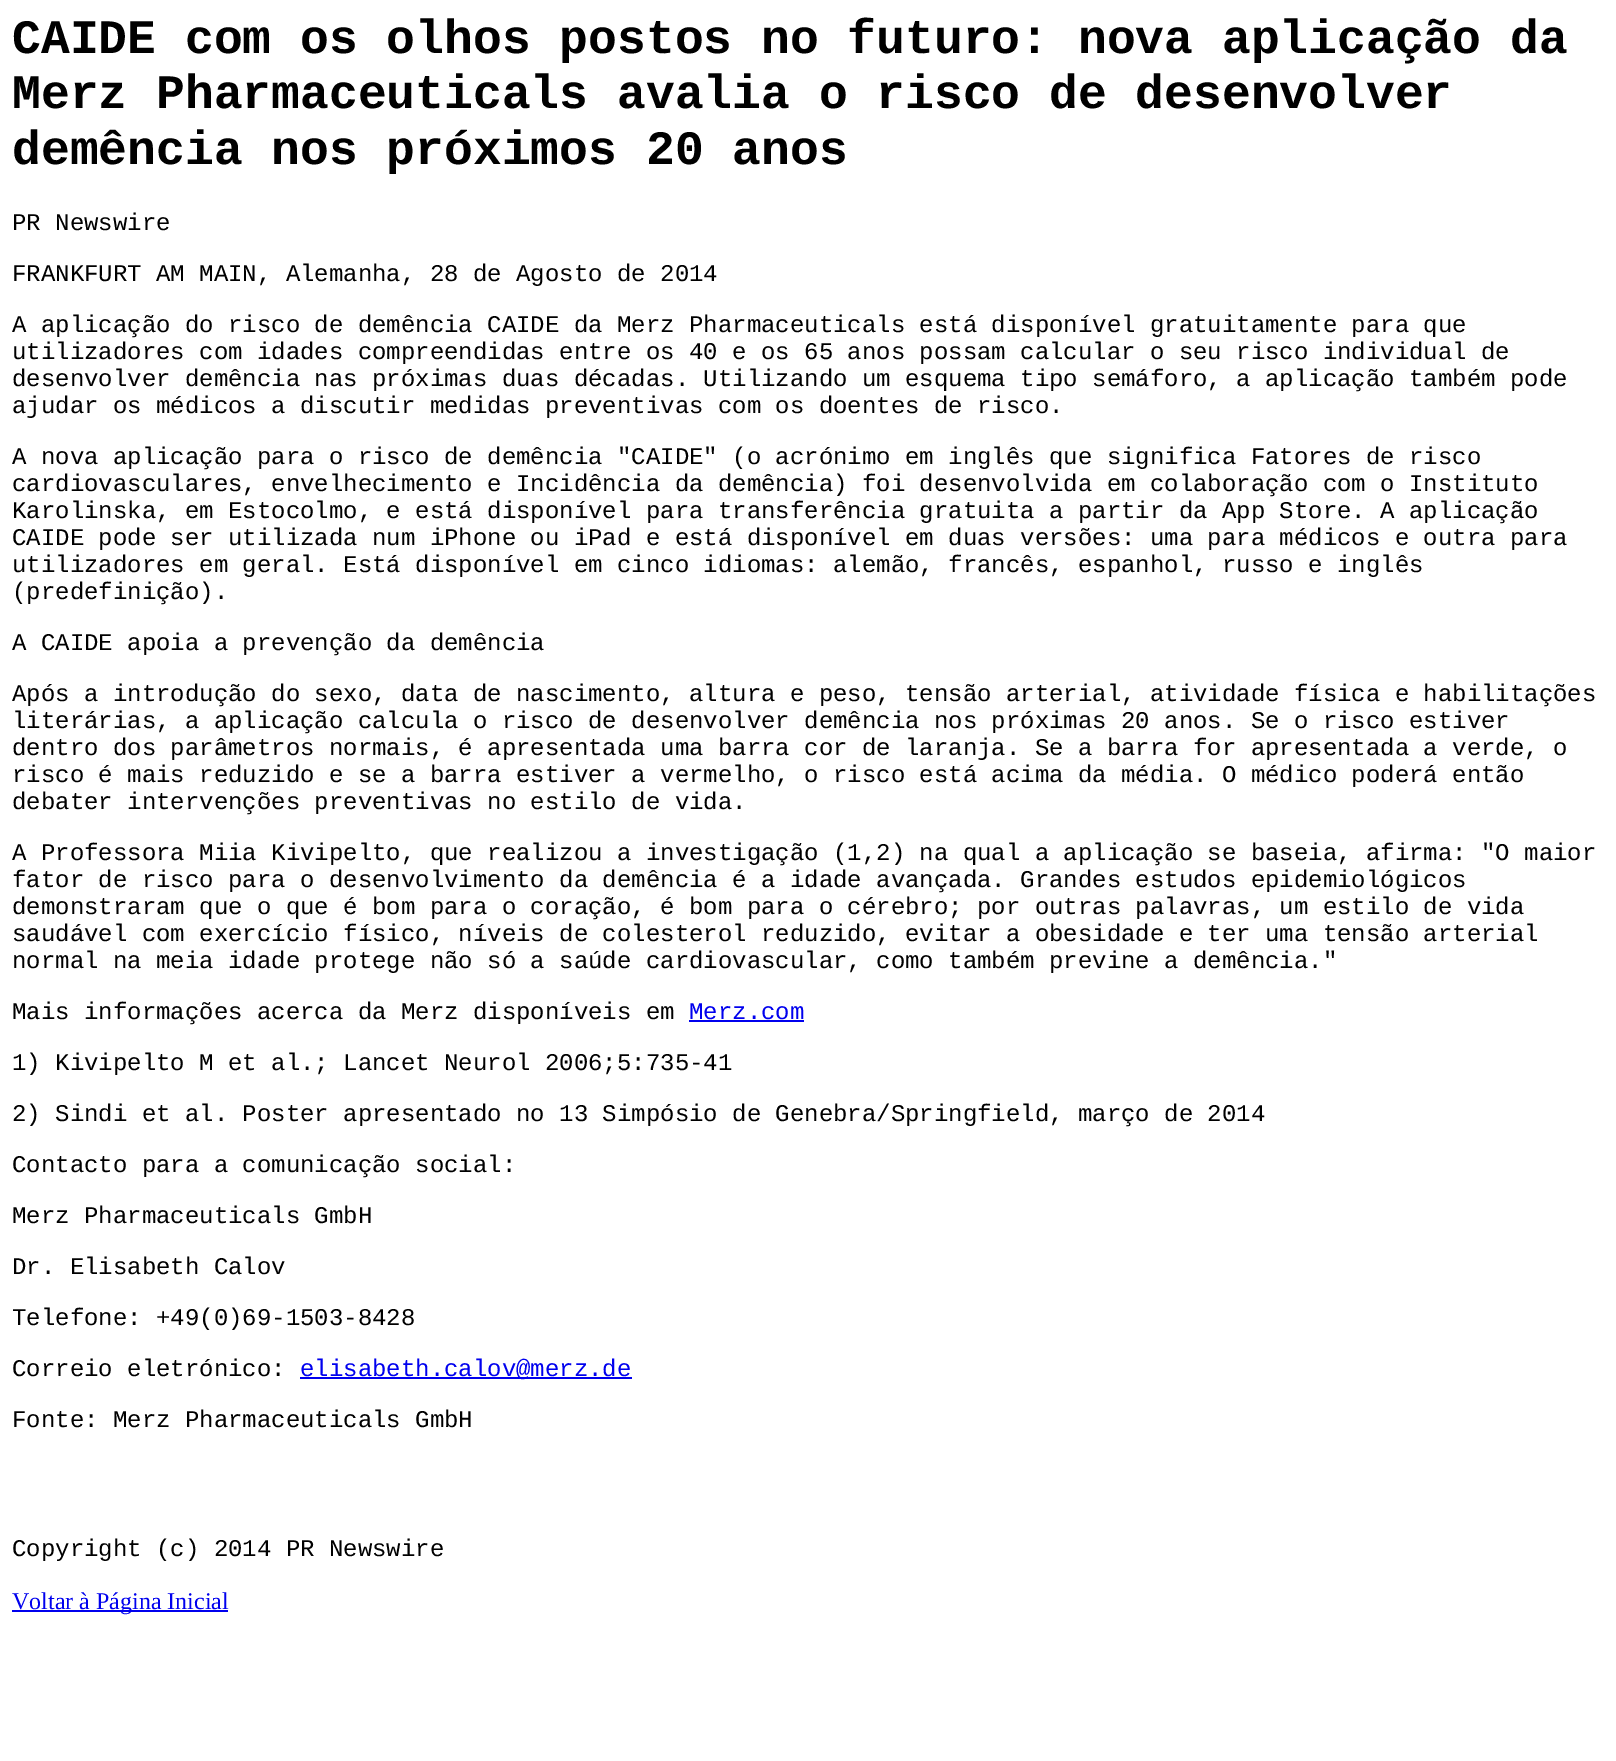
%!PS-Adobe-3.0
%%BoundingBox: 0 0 1616 1761
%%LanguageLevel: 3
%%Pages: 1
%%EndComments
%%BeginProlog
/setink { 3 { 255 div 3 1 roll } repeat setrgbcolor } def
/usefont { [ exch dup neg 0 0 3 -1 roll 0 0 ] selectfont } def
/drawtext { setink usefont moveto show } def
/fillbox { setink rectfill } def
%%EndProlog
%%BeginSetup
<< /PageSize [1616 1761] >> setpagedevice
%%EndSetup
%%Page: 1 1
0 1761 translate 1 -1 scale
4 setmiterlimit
0 0 1616 1761 255 255 255 fillbox
(CAIDE com os olhos postos no futuro: nova aplicação da) 12 53 /LiberationMono-Bold 48 0 0 0 drawtext
(Merz Pharmaceuticals avalia o risco de desenvolver) 12 108 /LiberationMono-Bold 48 0 0 0 drawtext
(demência nos próximos 20 anos) 12 164 /LiberationMono-Bold 48 0 0 0 drawtext
(PR Newswire) 12 230 /LiberationMono-Regular 24 0 0 0 drawtext
(FRANKFURT AM MAIN, Alemanha, 28 de Agosto de 2014) 12 281 /LiberationMono-Regular 24 0 0 0 drawtext
(A aplicação do risco de demência CAIDE da Merz Pharmaceuticals está disponível gratuitamente para que) 12 332 /LiberationMono-Regular 24 0 0 0 drawtext
(utilizadores com idades compreendidas entre os 40 e os 65 anos possam calcular o seu risco individual de) 12 359 /LiberationMono-Regular 24 0 0 0 drawtext
(desenvolver demência nas próximas duas décadas. Utilizando um esquema tipo semáforo, a aplicação também pode) 12 386 /LiberationMono-Regular 24 0 0 0 drawtext
(ajudar os médicos a discutir medidas preventivas com os doentes de risco.) 12 413 /LiberationMono-Regular 24 0 0 0 drawtext
(A nova aplicação para o risco de demência "CAIDE" \(o acrónimo em inglês que significa Fatores de risco) 12 464 /LiberationMono-Regular 24 0 0 0 drawtext
(cardiovasculares, envelhecimento e Incidência da demência\) foi desenvolvida em colaboração com o Instituto) 12 491 /LiberationMono-Regular 24 0 0 0 drawtext
(Karolinska, em Estocolmo, e está disponível para transferência gratuita a partir da App Store. A aplicação) 12 518 /LiberationMono-Regular 24 0 0 0 drawtext
(CAIDE pode ser utilizada num iPhone ou iPad e está disponível em duas versões: uma para médicos e outra para) 12 545 /LiberationMono-Regular 24 0 0 0 drawtext
(utilizadores em geral. Está disponível em cinco idiomas: alemão, francês, espanhol, russo e inglês) 12 572 /LiberationMono-Regular 24 0 0 0 drawtext
(\(predefinição\).) 12 599 /LiberationMono-Regular 24 0 0 0 drawtext
(A CAIDE apoia a prevenção da demência) 12 650 /LiberationMono-Regular 24 0 0 0 drawtext
(Após a introdução do sexo, data de nascimento, altura e peso, tensão arterial, atividade física e habilitações) 12 701 /LiberationMono-Regular 24 0 0 0 drawtext
(literárias, a aplicação calcula o risco de desenvolver demência nos próximas 20 anos. Se o risco estiver) 12 728 /LiberationMono-Regular 24 0 0 0 drawtext
(dentro dos parâmetros normais, é apresentada uma barra cor de laranja. Se a barra for apresentada a verde, o) 12 755 /LiberationMono-Regular 24 0 0 0 drawtext
(risco é mais reduzido e se a barra estiver a vermelho, o risco está acima da média. O médico poderá então) 12 782 /LiberationMono-Regular 24 0 0 0 drawtext
(debater intervenções preventivas no estilo de vida.) 12 809 /LiberationMono-Regular 24 0 0 0 drawtext
(A Professora Miia Kivipelto, que realizou a investigação \(1,2\) na qual a aplicação se baseia, afirma: "O maior) 12 860 /LiberationMono-Regular 24 0 0 0 drawtext
(fator de risco para o desenvolvimento da demência é a idade avançada. Grandes estudos epidemiológicos) 12 887 /LiberationMono-Regular 24 0 0 0 drawtext
(demonstraram que o que é bom para o coração, é bom para o cérebro; por outras palavras, um estilo de vida) 12 914 /LiberationMono-Regular 24 0 0 0 drawtext
(saudável com exercício físico, níveis de colesterol reduzido, evitar a obesidade e ter uma tensão arterial) 12 941 /LiberationMono-Regular 24 0 0 0 drawtext
(normal na meia idade protege não só a saúde cardiovascular, como também previne a demência.") 12 968 /LiberationMono-Regular 24 0 0 0 drawtext
(Mais informações acerca da Merz disponíveis em) 12 1019 /LiberationMono-Regular 24 0 0 0 drawtext
(Merz.com) 689 1019 /LiberationMono-Regular 24 0 0 238 drawtext
689 1020 115 2 0 0 238 fillbox
(1\) Kivipelto M et al.; Lancet Neurol 2006;5:735-41) 12 1070 /LiberationMono-Regular 24 0 0 0 drawtext
(2\) Sindi et al. Poster apresentado no 13 Simpósio de Genebra/Springfield, março de 2014) 12 1121 /LiberationMono-Regular 24 0 0 0 drawtext
(Contacto para a comunicação social:) 12 1172 /LiberationMono-Regular 24 0 0 0 drawtext
(Merz Pharmaceuticals GmbH) 12 1223 /LiberationMono-Regular 24 0 0 0 drawtext
(Dr. Elisabeth Calov) 12 1274 /LiberationMono-Regular 24 0 0 0 drawtext
(Telefone: +49\(0\)69-1503-8428) 12 1325 /LiberationMono-Regular 24 0 0 0 drawtext
(Correio eletrónico:) 12 1376 /LiberationMono-Regular 24 0 0 0 drawtext
300 1377 332 2 0 0 238 fillbox
(elisabeth.calov@merz.de) 300 1376 /LiberationMono-Regular 24 0 0 238 drawtext
(Fonte: Merz Pharmaceuticals GmbH) 12 1427 /LiberationMono-Regular 24 0 0 0 drawtext
(Copyright \(c\) 2014 PR Newswire) 12 1556 /LiberationMono-Regular 24 0 0 0 drawtext
12 1610 216 2 0 0 238 fillbox
(Voltar à Página Inicial) 12 1609 /LiberationSerif-Regular 24 0 0 238 drawtext
showpage
%%EOF
